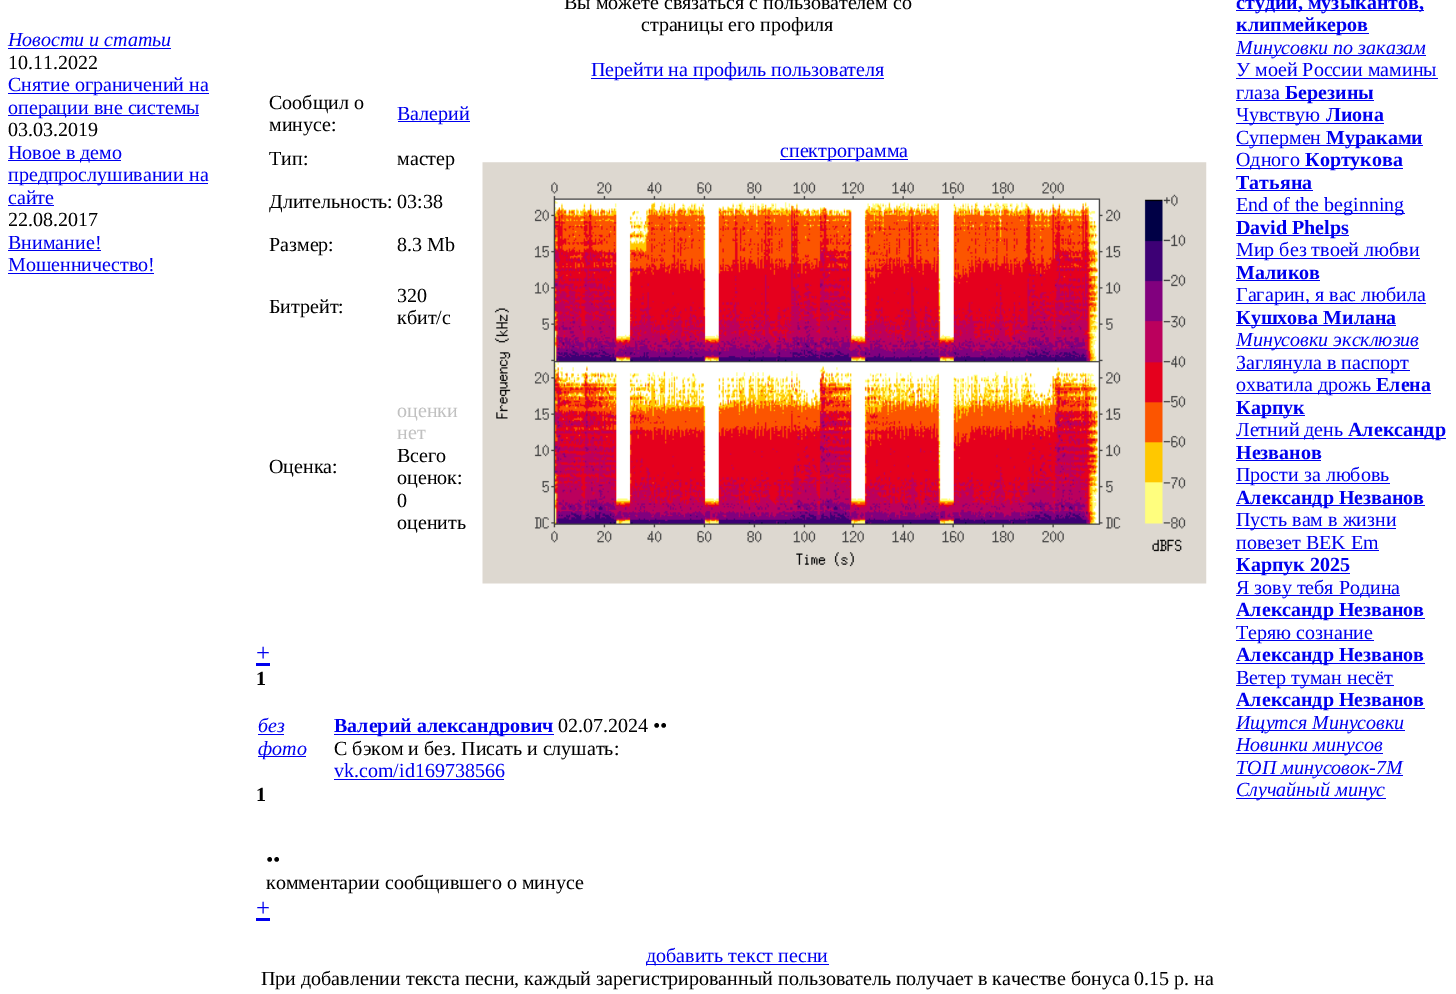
%!PS-Adobe-3.0
%%BoundingBox: 0 0 1456 994
%%LanguageLevel: 3
%%Pages: 1
%%EndComments
%%BeginProlog
/setink { 3 { 255 div 3 1 roll } repeat setrgbcolor } def
/usefont { [ exch dup neg 0 0 3 -1 roll 0 0 ] selectfont } def
/drawtext { setink usefont moveto show } def
/fillbox { setink rectfill } def
/drawimage { 5 dict begin { /h /w /y /x /name } { exch def } forall
  gsave x y translate w h scale
  w h 8 [w 0 0 h 0 0] name (r) file false 3 colorimage grestore end } def
%%EndProlog
%%BeginSetup
<< /PageSize [1456 994] >> setpagedevice
%%EndSetup
%%Page: 1 1
0 994 translate 1 -1 scale
4 setmiterlimit
0 0 1456 994 255 255 255 fillbox
(Новости и статьи) 8 46 /LiberationSerif-Italic 20 0 0 238 drawtext
8 48 163 1 0 0 238 fillbox
(10.11.2022) 8 69 /LiberationSerif-Regular 20 0 0 0 drawtext
8 93 201 1 0 0 238 fillbox
(Снятие ограничений на) 8 91 /LiberationSerif-Regular 20 0 0 238 drawtext
8 115 191 1 0 0 238 fillbox
(операции вне системы) 8 114 /LiberationSerif-Regular 20 0 0 238 drawtext
(03.03.2019) 8 136 /LiberationSerif-Regular 20 0 0 0 drawtext
8 160 113 1 0 0 238 fillbox
(Новое в демо) 8 159 /LiberationSerif-Regular 20 0 0 238 drawtext
8 183 200 1 0 0 238 fillbox
(предпрослушивании на) 8 181 /LiberationSerif-Regular 20 0 0 238 drawtext
(сайте) 8 204 /LiberationSerif-Regular 20 0 0 238 drawtext
8 205 46 1 0 0 238 fillbox
(22.08.2017) 8 226 /LiberationSerif-Regular 20 0 0 0 drawtext
(Внимание!) 8 249 /LiberationSerif-Regular 20 0 0 238 drawtext
8 250 93 1 0 0 238 fillbox
(Мошенничество!) 8 271 /LiberationSerif-Regular 20 0 0 238 drawtext
8 273 146 1 0 0 238 fillbox
(Вы можете связаться с пользователем со) 564 9 /LiberationSerif-Regular 20 0 0 0 drawtext
(страницы его профиля) 641 31 /LiberationSerif-Regular 20 0 0 0 drawtext
591 78 293 1 0 0 238 fillbox
(Перейти на профиль пользователя) 591 76 /LiberationSerif-Regular 20 0 0 238 drawtext
(Сообщил о) 269 109 /LiberationSerif-Regular 20 0 0 0 drawtext
(минусе:) 269 131 /LiberationSerif-Regular 20 0 0 0 drawtext
398 121 72 1 0 0 238 fillbox
(Валерий) 397 120 /LiberationSerif-Regular 20 0 0 238 drawtext
(Тип:) 269 165 /LiberationSerif-Regular 20 0 0 0 drawtext
(мастер) 397 165 /LiberationSerif-Regular 20 0 0 0 drawtext
780 159 128 1 0 0 238 fillbox
(спектрограмма) 780 157 /LiberationSerif-Regular 20 0 0 238 drawtext
(assets/img1.rgb) 482 162 725 422 drawimage
(Длительность:) 269 208 /LiberationSerif-Regular 20 0 0 0 drawtext
(03:38) 397 208 /LiberationSerif-Regular 20 0 0 0 drawtext
(Размер:) 269 251 /LiberationSerif-Regular 20 0 0 0 drawtext
(8.3 Mb) 397 251 /LiberationSerif-Regular 20 0 0 0 drawtext
(Битрейт:) 269 313 /LiberationSerif-Regular 20 0 0 0 drawtext
(320) 397 302 /LiberationSerif-Regular 20 0 0 0 drawtext
(кбит/с) 397 324 /LiberationSerif-Regular 20 0 0 0 drawtext
(Оценка:) 269 473 /LiberationSerif-Regular 20 0 0 0 drawtext
(оценки) 397 417 /LiberationSerif-Regular 20 192 192 192 drawtext
(нет) 397 439 /LiberationSerif-Regular 20 192 192 192 drawtext
(Всего) 397 462 /LiberationSerif-Regular 20 0 0 0 drawtext
(оценок:) 397 484 /LiberationSerif-Regular 20 0 0 0 drawtext
(0) 397 507 /LiberationSerif-Regular 20 0 0 0 drawtext
(оценить) 397 529 /LiberationSerif-Regular 20 0 0 0 drawtext
(+) 256 661 /LiberationSerif-Regular 25 0 0 238 drawtext
256 663 14 3 0 0 238 fillbox
(1) 256 685 /LiberationSerif-Bold 20 0 0 0 drawtext
(без) 258 732 /LiberationSerif-Italic 20 0 0 238 drawtext
258 734 26 1 0 0 238 fillbox
258 756 48 1 0 0 238 fillbox
(фото) 258 755 /LiberationSerif-Italic 20 0 0 238 drawtext
334 734 220 1 0 0 238 fillbox
(Валерий александрович) 334 732 /LiberationSerif-Bold 20 0 0 238 drawtext
(02.07.2024) 558 732 /LiberationSerif-Regular 20 0 0 0 drawtext
(••) 653 732 /LiberationSerif-Italic 20 0 0 0 drawtext
(С бэком и без. Писать и слушать:) 334 755 /LiberationSerif-Regular 20 0 0 0 drawtext
(vk.com/id169738566) 334 777 /LiberationSerif-Regular 20 0 0 238 drawtext
334 779 170 1 0 0 238 fillbox
(1) 256 801 /LiberationSerif-Bold 20 0 0 0 drawtext
(••) 266 866 /LiberationSerif-Italic 20 0 0 0 drawtext
(комментарии сообщившего о минусе) 266 889 /LiberationSerif-Regular 20 0 0 0 drawtext
(+) 256 916 /LiberationSerif-Regular 25 0 0 238 drawtext
256 918 14 3 0 0 238 fillbox
646 964 183 1 0 0 238 fillbox
(добавить текст песни) 646 962 /LiberationSerif-Regular 20 0 0 238 drawtext
(При добавлении текста песни, каждый зарегистрированный пользователь получает в качестве бонуса 0.15 р. на) 261 985 /LiberationSerif-Regular 20 0 0 0 drawtext
1236 10 188 1 0 0 238 fillbox
(студий, музыкантов,) 1236 9 /LiberationSerif-Bold 20 0 0 238 drawtext
1236 33 133 1 0 0 238 fillbox
(клипмейкеров) 1236 31 /LiberationSerif-Bold 20 0 0 238 drawtext
1236 55 190 1 0 0 238 fillbox
(Минусовки по заказам) 1236 54 /LiberationSerif-Italic 20 0 0 238 drawtext
(У моей России мамины) 1236 76 /LiberationSerif-Regular 20 0 0 238 drawtext
1236 78 202 1 0 0 238 fillbox
(глаза) 1236 99 /LiberationSerif-Regular 20 0 0 238 drawtext
1236 100 138 1 0 0 238 fillbox
(Березины) 1285 99 /LiberationSerif-Bold 20 0 0 238 drawtext
1236 123 148 1 0 0 238 fillbox
(Чувствую) 1236 121 /LiberationSerif-Regular 20 0 0 238 drawtext
(Лиона) 1326 121 /LiberationSerif-Bold 20 0 0 238 drawtext
1236 145 187 1 0 0 238 fillbox
(Супермен) 1236 144 /LiberationSerif-Regular 20 0 0 238 drawtext
(Мураками) 1326 144 /LiberationSerif-Bold 20 0 0 238 drawtext
1236 168 167 1 0 0 238 fillbox
(Одного) 1236 166 /LiberationSerif-Regular 20 0 0 238 drawtext
(Кортукова) 1305 166 /LiberationSerif-Bold 20 0 0 238 drawtext
(Татьяна) 1236 189 /LiberationSerif-Bold 20 0 0 238 drawtext
1236 190 77 1 0 0 238 fillbox
1236 213 169 1 0 0 238 fillbox
(End of the beginning) 1236 211 /LiberationSerif-Regular 20 0 0 238 drawtext
1236 235 113 1 0 0 238 fillbox
(David Phelps) 1236 234 /LiberationSerif-Bold 20 0 0 238 drawtext
1236 258 184 1 0 0 238 fillbox
(Мир без твоей любви) 1236 256 /LiberationSerif-Regular 20 0 0 238 drawtext
(Маликов) 1236 279 /LiberationSerif-Bold 20 0 0 238 drawtext
1236 280 84 1 0 0 238 fillbox
1236 303 190 1 0 0 238 fillbox
(Гагарин, я вас любила) 1236 301 /LiberationSerif-Regular 20 0 0 238 drawtext
1236 325 160 1 0 0 238 fillbox
(Кушхова Милана) 1236 324 /LiberationSerif-Bold 20 0 0 238 drawtext
1236 348 183 1 0 0 238 fillbox
(Минусовки эксклюзив) 1236 346 /LiberationSerif-Italic 20 0 0 238 drawtext
1236 370 174 1 0 0 238 fillbox
(Заглянула в паспорт) 1236 369 /LiberationSerif-Regular 20 0 0 238 drawtext
1236 393 195 1 0 0 238 fillbox
(охватила дрожь) 1236 391 /LiberationSerif-Regular 20 0 0 238 drawtext
(Елена) 1376 391 /LiberationSerif-Bold 20 0 0 238 drawtext
1236 415 69 1 0 0 238 fillbox
(Карпук) 1236 414 /LiberationSerif-Bold 20 0 0 238 drawtext
1236 438 210 1 0 0 238 fillbox
(Летний день) 1236 436 /LiberationSerif-Regular 20 0 0 238 drawtext
(Александр) 1348 436 /LiberationSerif-Bold 20 0 0 238 drawtext
(Незванов) 1236 459 /LiberationSerif-Bold 20 0 0 238 drawtext
1236 460 85 1 0 0 238 fillbox
1236 483 154 1 0 0 238 fillbox
(Прости за любовь) 1236 481 /LiberationSerif-Regular 20 0 0 238 drawtext
1236 505 189 1 0 0 238 fillbox
(Александр Незванов) 1236 504 /LiberationSerif-Bold 20 0 0 238 drawtext
1236 528 160 1 0 0 238 fillbox
(Пусть вам в жизни) 1236 526 /LiberationSerif-Regular 20 0 0 238 drawtext
(повезет BEK Em) 1236 549 /LiberationSerif-Regular 20 0 0 238 drawtext
1236 550 143 1 0 0 238 fillbox
1236 573 114 1 0 0 238 fillbox
(Карпук 2025) 1236 571 /LiberationSerif-Bold 20 0 0 238 drawtext
1236 595 164 1 0 0 238 fillbox
(Я зову тебя Родина) 1236 594 /LiberationSerif-Regular 20 0 0 238 drawtext
1236 618 189 1 0 0 238 fillbox
(Александр Незванов) 1236 616 /LiberationSerif-Bold 20 0 0 238 drawtext
1236 640 138 1 0 0 238 fillbox
(Теряю сознание) 1236 639 /LiberationSerif-Regular 20 0 0 238 drawtext
1236 663 189 1 0 0 238 fillbox
(Александр Незванов) 1236 661 /LiberationSerif-Bold 20 0 0 238 drawtext
1236 685 158 1 0 0 238 fillbox
(Ветер туман несёт) 1236 684 /LiberationSerif-Regular 20 0 0 238 drawtext
1236 708 189 1 0 0 238 fillbox
(Александр Незванов) 1236 706 /LiberationSerif-Bold 20 0 0 238 drawtext
1236 730 169 1 0 0 238 fillbox
(Ищутся Минусовки) 1236 729 /LiberationSerif-Italic 20 0 0 238 drawtext
1236 753 147 1 0 0 238 fillbox
(Новинки минусов) 1236 751 /LiberationSerif-Italic 20 0 0 238 drawtext
1236 775 167 1 0 0 238 fillbox
(ТОП минусовок-7M) 1236 774 /LiberationSerif-Italic 20 0 0 238 drawtext
1236 798 150 1 0 0 238 fillbox
(Случайный минус) 1236 796 /LiberationSerif-Italic 20 0 0 238 drawtext
showpage
%%EOF
